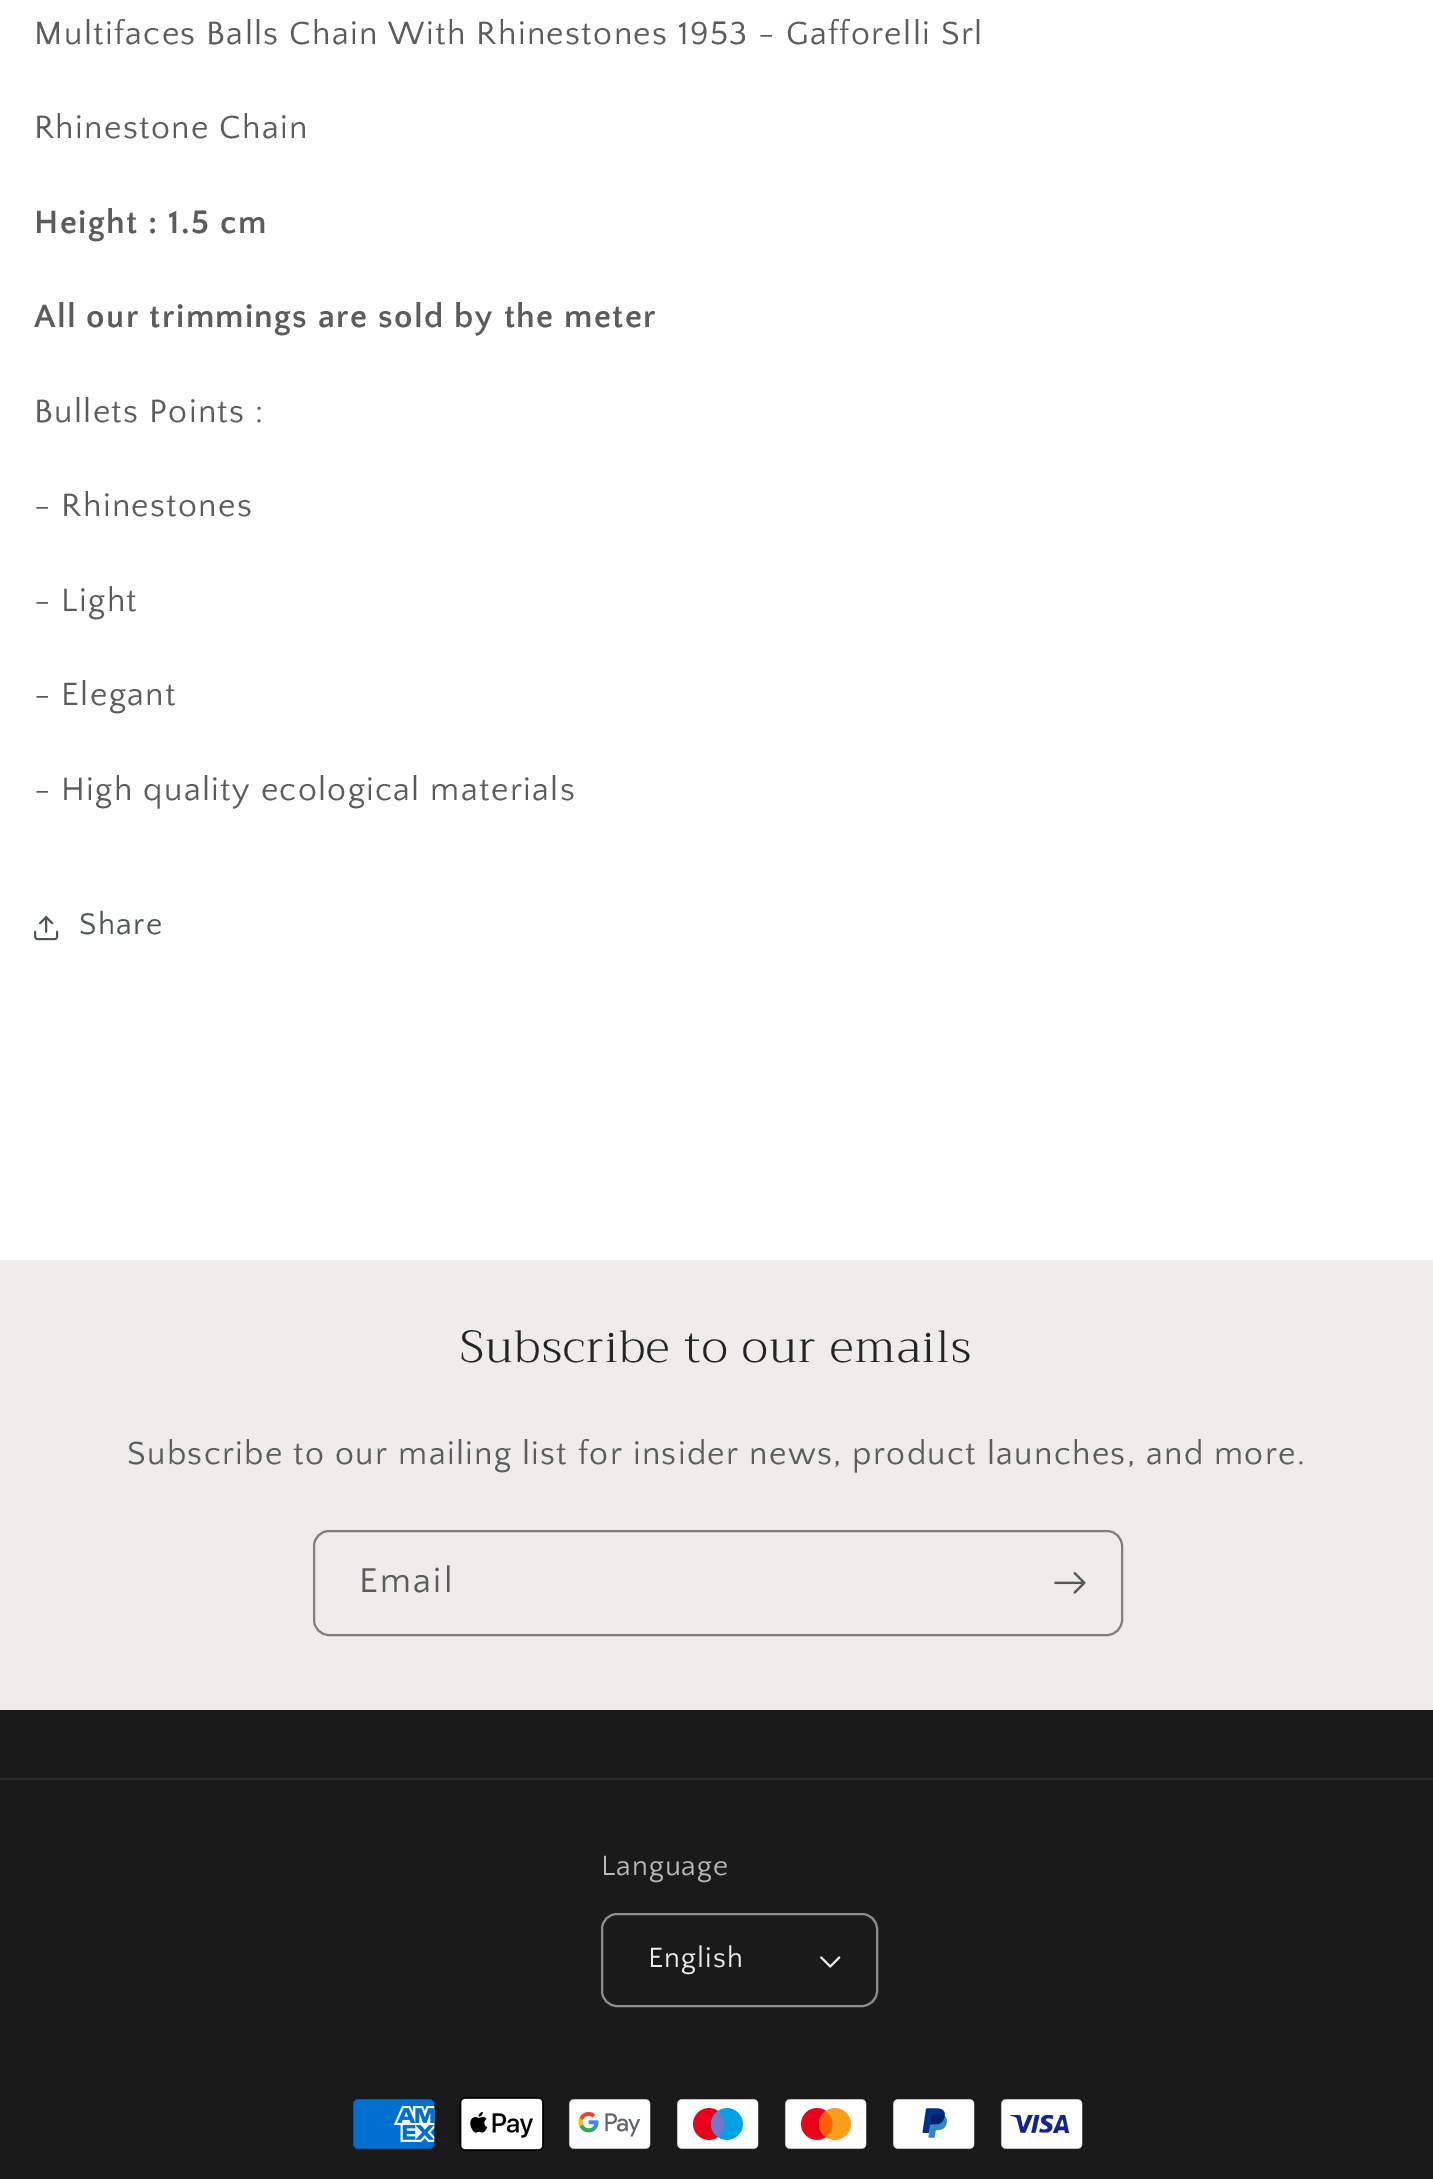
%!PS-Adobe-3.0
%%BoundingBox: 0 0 1433 2179
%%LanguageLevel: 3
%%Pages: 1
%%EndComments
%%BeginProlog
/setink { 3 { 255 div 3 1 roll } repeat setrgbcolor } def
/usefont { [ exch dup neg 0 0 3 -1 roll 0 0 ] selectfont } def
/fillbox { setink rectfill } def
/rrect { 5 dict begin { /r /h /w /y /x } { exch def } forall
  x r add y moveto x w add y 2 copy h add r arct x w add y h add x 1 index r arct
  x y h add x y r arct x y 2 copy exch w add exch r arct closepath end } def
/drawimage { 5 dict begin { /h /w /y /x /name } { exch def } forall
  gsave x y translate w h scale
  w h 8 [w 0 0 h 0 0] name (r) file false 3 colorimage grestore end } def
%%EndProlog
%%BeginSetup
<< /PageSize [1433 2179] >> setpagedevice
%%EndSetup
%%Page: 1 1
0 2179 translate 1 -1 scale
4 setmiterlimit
0 0 1433 2179 255 255 255 fillbox
/QuattrocentoSans-Regular 33.75 usefont
92 92 92 setink
34 44 moveto 1.35 0 (Multifaces Balls Chain With Rhinestones 1953 - Gafforelli Srl) ashow
34 138 moveto 1.35 0 (Rhinestone Chain) ashow
/QuattrocentoSans-Bold 33.75 usefont
34 233 moveto 1.35 0 (Height : 1.5 cm) ashow
34 327 moveto 1.35 0 (All our trimmings are sold by the meter) ashow
/QuattrocentoSans-Regular 33.75 usefont
34 422 moveto 1.35 0 (Bullets Points :) ashow
34 516 moveto 1.35 0 (- Rhinestones) ashow
34 611 moveto 1.35 0 (- Light) ashow
34 705 moveto 1.35 0 (- Elegant) ashow
34 800 moveto 1.35 0 (- High quality ecological materials) ashow
(assets/img1.rgb) 34 916 25 25 drawimage
/QuattrocentoSans-Regular 31.5 usefont
80 86 85 setink
79 934 moveto 1.35 0 (Share) ashow
0 1260 1433 450 239 236 236 fillbox
/Trirong-Light 45 usefont
37 37 37 setink
460 1362 moveto 1.35 0 (Subscribe to our emails) ashow
/QuattrocentoSans-Regular 33.75 usefont
92 92 92 setink
127 1464 moveto 1.35 0 (Subscribe to our mailing list for insider news, product launches, and more.) ashow
128 127 127 setink
2 setlinewidth
314 1531 808 104 15 rrect stroke
/QuattrocentoSans-Regular 36 usefont
92 92 92 setink
359 1592 moveto 2.25 0 (Email) ashow
(assets/img2.rgb) 1054 1572 32 22 drawimage
0 1710 1433 469 26 26 26 fillbox
0 1778 1433 2 43 43 43 fillbox
/QuattrocentoSans-Regular 29.25 usefont
186 184 184 setink
601 1875 moveto 1 0 (Language) ashow
(assets/img3.rgb) 820 1956 21 12 drawimage
143 142 142 setink
602 1914 275 92 15 rrect stroke
239 236 236 setink
648 1967 moveto 1 0 (English) ashow
(assets/img4.rgb) 353 2099 82 50 drawimage
(assets/img5.rgb) 459 2097 85 54 drawimage
(assets/img6.rgb) 569 2099 82 50 drawimage
(assets/img7.rgb) 677 2099 82 50 drawimage
(assets/img8.rgb) 785 2099 82 50 drawimage
(assets/img9.rgb) 893 2099 82 50 drawimage
(assets/img10.rgb) 1001 2099 82 50 drawimage
showpage
%%EOF
